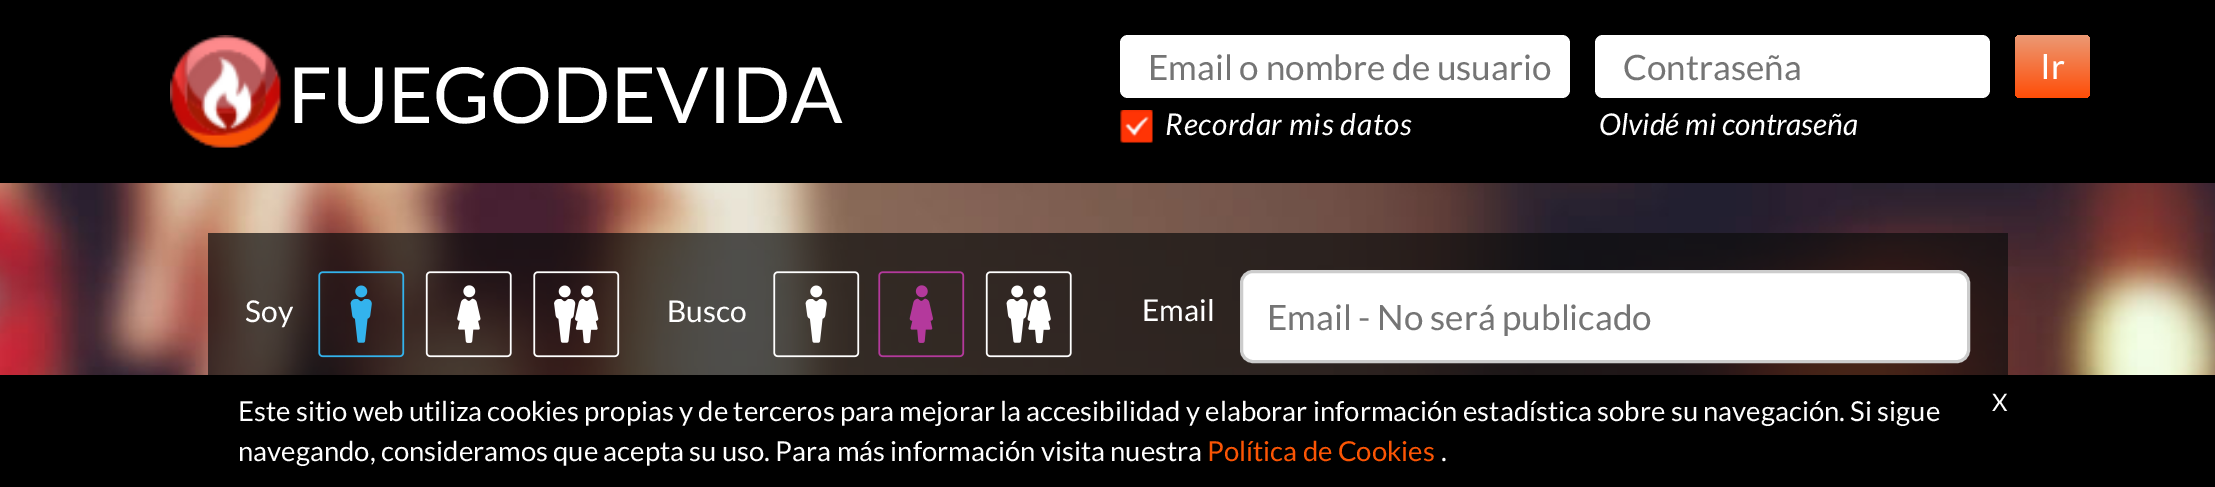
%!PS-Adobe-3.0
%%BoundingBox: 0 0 2215 487
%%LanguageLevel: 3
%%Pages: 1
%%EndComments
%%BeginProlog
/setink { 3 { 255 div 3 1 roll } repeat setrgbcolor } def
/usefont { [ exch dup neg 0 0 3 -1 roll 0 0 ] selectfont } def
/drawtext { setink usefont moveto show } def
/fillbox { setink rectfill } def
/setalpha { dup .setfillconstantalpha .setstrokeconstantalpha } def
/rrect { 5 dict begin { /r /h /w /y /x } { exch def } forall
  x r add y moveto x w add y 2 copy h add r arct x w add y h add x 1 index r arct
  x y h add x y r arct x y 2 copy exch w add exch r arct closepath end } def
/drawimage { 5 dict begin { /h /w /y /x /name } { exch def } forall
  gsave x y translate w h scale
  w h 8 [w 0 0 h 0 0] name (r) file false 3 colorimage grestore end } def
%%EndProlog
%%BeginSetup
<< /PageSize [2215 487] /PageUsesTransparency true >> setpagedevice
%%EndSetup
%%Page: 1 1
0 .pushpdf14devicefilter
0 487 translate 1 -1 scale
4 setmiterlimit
0 0 2215 487 255 255 255 fillbox
0 0 2215 183 0 0 0 fillbox
(assets/img1.rgb) 170 35 113 113 drawimage
(FUEGODEVIDA) 288 123 /Lato-Regular 77.5 255 255 255 drawtext
1120 35 450 63 8 rrect fill
(Email o nombre de usuario) 1148 80 /Lato-Regular 35 117 117 117 drawtext
255 255 255 setink
1595 35 395 63 8 rrect fill
(Contraseña) 1623 80 /Lato-Regular 35 117 117 117 drawtext
gsave 2015 35 75 63 5 rrect clip newpath
<< /ShadingType 2 /ColorSpace /DeviceRGB /Coords [2053 98 2053 35] /Extend [true true] /Function << /FunctionType 2 /Domain [0 1] /C0 [1 0.302 0.027] /C1 [0.925 0.6 0.455] /N 1 >> >> shfill grestore
(Ir) 2040 79 /Lato-Regular 35 255 255 255 drawtext
(assets/img2.rgb) 1120 110 33 33 drawimage
/Lato-Italic 30 usefont
1165 135 moveto 0.75 0 (Recordar mis datos) ashow
(Olvidé mi contraseña) 1599 135 /Lato-Italic 30 255 255 255 drawtext
(assets/img3.rgb) 0 183 2215 192 drawimage
0.7 setalpha
208 233 1800 142 13 13 13 fillbox
1 setalpha
(Soy) 245 322 /Lato-Regular 30 255 255 255 drawtext
(assets/img4.rgb) 318 271 87 87 drawimage
(assets/img5.rgb) 425 271 87 87 drawimage
(assets/img6.rgb) 533 271 87 87 drawimage
(Busco) 667 322 /Lato-Regular 30 255 255 255 drawtext
(assets/img7.rgb) 773 271 87 87 drawimage
(assets/img8.rgb) 878 271 87 87 drawimage
(assets/img9.rgb) 985 271 87 87 drawimage
(Email) 1142 321 /Lato-Regular 30 255 255 255 drawtext
1241.5 271.5 727 90 11.5 rrect gsave fill grestore
204 204 204 setink
3 setlinewidth
stroke
(Email - No será publicado) 1267 330 /Lato-Regular 35 117 117 117 drawtext
0 375 2215 112 0 0 0 fillbox
(Este sitio web utiliza cookies propias y de terceros para mejorar la accesibilidad y elaborar información estadística sobre su navegación. Si sigue) 238 421 /Lato-Regular 27.5 255 255 255 drawtext
(navegando, consideramos que acepta su uso. Para más información visita nuestra) 238 461 /Lato-Regular 27.5 255 255 255 drawtext
(Política de Cookies) 1207 461 /Lato-Regular 27.5 251 85 4 drawtext
(.) 1441 461 /Lato-Regular 27.5 255 255 255 drawtext
(X) 1992 411 /Lato-Regular 24 255 255 255 drawtext
.poppdf14devicefilter showpage
%%EOF
